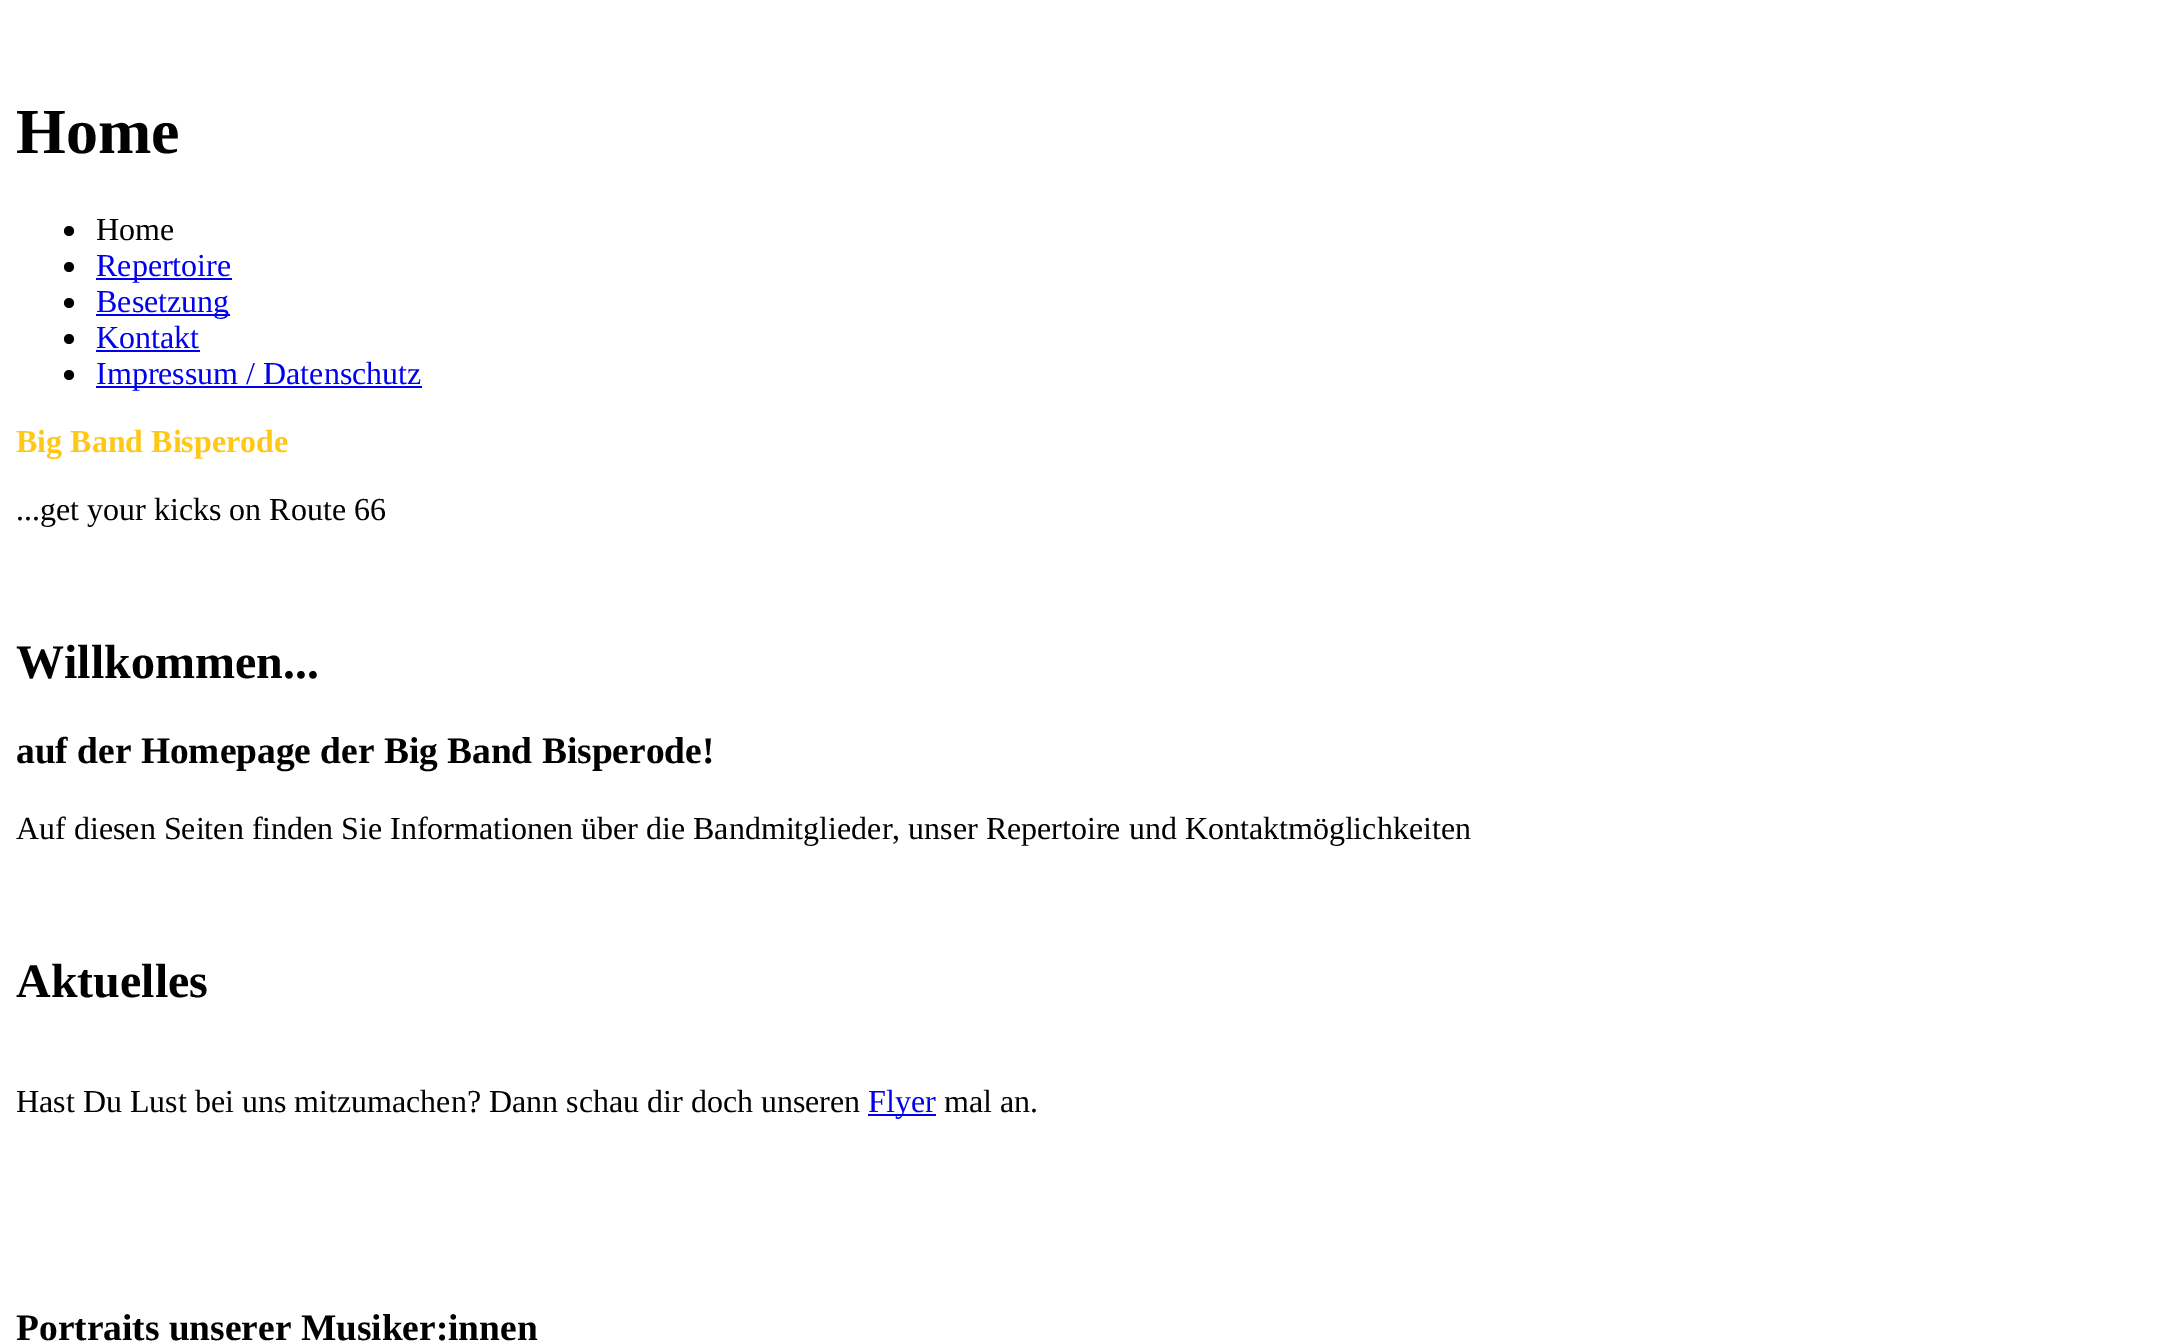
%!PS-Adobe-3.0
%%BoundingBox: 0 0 2182 1344
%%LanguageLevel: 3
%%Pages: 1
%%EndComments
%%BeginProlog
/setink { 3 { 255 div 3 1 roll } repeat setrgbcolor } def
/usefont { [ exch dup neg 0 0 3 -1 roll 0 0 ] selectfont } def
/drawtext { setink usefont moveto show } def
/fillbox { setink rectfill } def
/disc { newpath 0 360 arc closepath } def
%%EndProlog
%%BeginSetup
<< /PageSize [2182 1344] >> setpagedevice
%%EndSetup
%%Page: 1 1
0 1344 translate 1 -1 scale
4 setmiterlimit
0 0 2182 1344 255 255 255 fillbox
(Home) 16 153 /LiberationSerif-Bold 64 0 0 0 drawtext
69 231 5 disc fill
(Home) 96 240 /LiberationSerif-Regular 32 0 0 0 drawtext
69 267 5 disc fill
96 278 136 2 0 0 238 fillbox
(Repertoire) 96 276 /LiberationSerif-Regular 32 0 0 238 drawtext
0 0 0 setink
69 303 5 disc fill
96 314 134 2 0 0 238 fillbox
(Besetzung) 96 312 /LiberationSerif-Regular 32 0 0 238 drawtext
0 0 0 setink
69 339 5 disc fill
(Kontakt) 96 348 /LiberationSerif-Regular 32 0 0 238 drawtext
96 350 104 2 0 0 238 fillbox
0 0 0 setink
69 375 5 disc fill
96 386 326 2 0 0 238 fillbox
(Impressum / Datenschutz) 96 384 /LiberationSerif-Regular 32 0 0 238 drawtext
(Big Band Bisperode) 16 452 /LiberationSerif-Bold 32 255 200 21 drawtext
(...get your kicks on Route 66) 16 520 /LiberationSerif-Regular 32 0 0 0 drawtext
(Willkommen...) 16 678 /LiberationSerif-Bold 48 0 0 0 drawtext
(auf der Homepage der Big Band Bisperode!) 16 763 /LiberationSerif-Bold 37.4 0 0 0 drawtext
(Auf diesen Seiten finden Sie Informationen über die Bandmitglieder, unser Repertoire und Kontaktmöglichkeiten) 16 839 /LiberationSerif-Regular 32 0 0 0 drawtext
(Aktuelles) 16 997 /LiberationSerif-Bold 48 0 0 0 drawtext
(Hast Du Lust bei uns mitzumachen? Dann schau dir doch unseren) 16 1112 /LiberationSerif-Regular 32 0 0 0 drawtext
868 1114 68 2 0 0 238 fillbox
(Flyer) 868 1112 /LiberationSerif-Regular 32 0 0 238 drawtext
(mal an.) 944 1112 /LiberationSerif-Regular 32 0 0 0 drawtext
(Portraits unserer Musiker:innen) 16 1340 /LiberationSerif-Bold 37.4 0 0 0 drawtext
showpage
%%EOF
